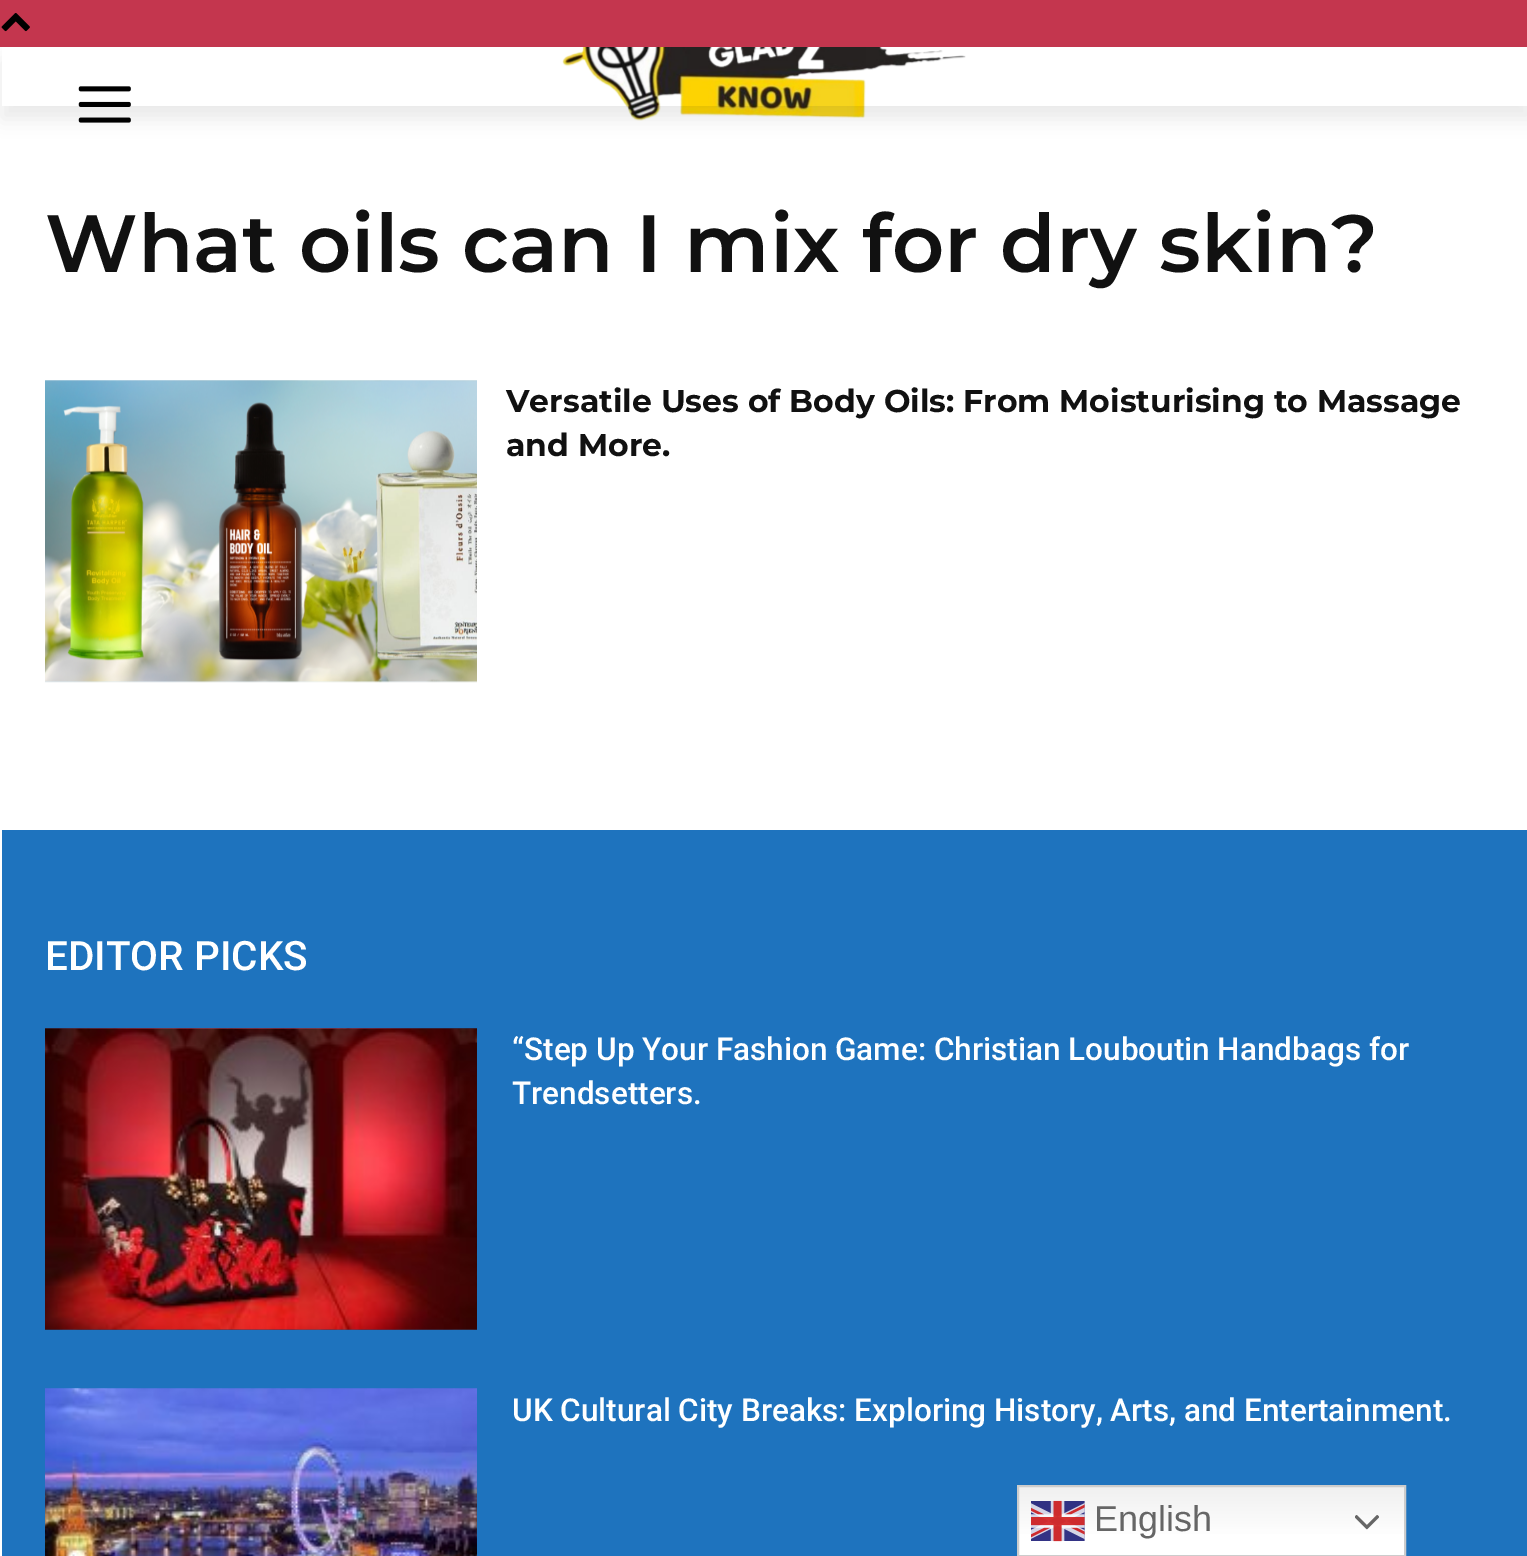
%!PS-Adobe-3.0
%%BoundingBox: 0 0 1527 1556
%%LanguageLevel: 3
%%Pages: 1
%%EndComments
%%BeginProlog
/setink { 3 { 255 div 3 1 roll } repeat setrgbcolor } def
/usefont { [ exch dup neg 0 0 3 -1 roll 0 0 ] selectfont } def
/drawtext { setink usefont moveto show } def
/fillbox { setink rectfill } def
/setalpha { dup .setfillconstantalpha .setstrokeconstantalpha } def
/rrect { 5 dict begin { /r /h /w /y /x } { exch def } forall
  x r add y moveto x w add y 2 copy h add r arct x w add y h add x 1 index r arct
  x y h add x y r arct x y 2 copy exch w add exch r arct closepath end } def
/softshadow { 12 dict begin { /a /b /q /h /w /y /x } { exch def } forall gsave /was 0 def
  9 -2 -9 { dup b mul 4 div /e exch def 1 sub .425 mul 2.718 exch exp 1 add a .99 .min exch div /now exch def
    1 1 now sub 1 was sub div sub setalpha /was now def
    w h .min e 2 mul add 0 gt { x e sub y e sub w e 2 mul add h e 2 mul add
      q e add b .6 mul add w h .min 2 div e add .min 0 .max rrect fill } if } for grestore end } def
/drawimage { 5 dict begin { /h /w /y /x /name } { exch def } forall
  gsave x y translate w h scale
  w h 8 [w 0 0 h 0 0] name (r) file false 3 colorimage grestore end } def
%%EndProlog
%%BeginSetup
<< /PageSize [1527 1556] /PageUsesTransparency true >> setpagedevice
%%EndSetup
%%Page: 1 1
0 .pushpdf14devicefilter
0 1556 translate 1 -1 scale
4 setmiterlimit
0 0 1527 1556 255 255 255 fillbox
0 0 1527 47 196 54 78 fillbox
(assets/img1.rgb) 1 13 29 19 drawimage
(assets/img2.rgb) 78 86 53 37 drawimage
(assets/img3.rgb) 562 47 404 74 drawimage
gsave
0 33 moveto 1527 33 lineto 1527 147 lineto 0 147 lineto closepath 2 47 moveto 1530 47 lineto 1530 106 lineto 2 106 lineto closepath eoclip newpath
0 0 0 setink
2 61 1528 58 0 9 0.08 softshadow
grestore
(What oils can I mix for dry skin?) 45 272 /Montserrat-SemiBold 81 17 17 17 drawtext
(assets/img4.rgb) 45 380 432 303 drawimage
(Versatile Uses of Body Oils: From Moisturising to Massage) 506 412 /Montserrat-Bold 31.5 17 17 17 drawtext
(and More.) 506 456 /Montserrat-Bold 31.5 17 17 17 drawtext
2 830 1525 726 30 115 190 fillbox
(EDITOR PICKS) 45 970 /Roboto-Medium 40.5 255 255 255 drawtext
(assets/img5.rgb) 45 1028 432 302 drawimage
(“Step Up Your Fashion Game: Christian Louboutin Handbags for) 512 1060 /Roboto-Medium 31.5 255 255 255 drawtext
(Trendsetters.) 512 1104 /Roboto-Medium 31.5 255 255 255 drawtext
(assets/img6.rgb) 45 1388 432 168 drawimage
(UK Cultural City Breaks: Exploring History, Arts, and Entertainment.) 512 1421 /Roboto-Medium 31.5 255 255 255 drawtext
gsave 1019 1487 moveto 1404 1487 lineto 1404 1555 lineto 1019 1555 lineto closepath clip newpath
<< /ShadingType 2 /ColorSpace /DeviceRGB /Coords [1212 1485 1212 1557] /Extend [true true] /Function << /FunctionType 3 /Domain [0 1] /Functions [<< /FunctionType 2 /Domain [0 1] /C0 [0.937 0.937 0.937] /C1 [1 1 1] /N 1 >> << /FunctionType 2 /Domain [0 1] /C0 [1 1 1] /C1 [1 1 1] /N 1 >>] /Bounds [0.7] /Encode [0 1 0 1] >> >> shfill grestore
204 204 204 setink
2 setlinewidth
1018 1486 387 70 rectstroke
(assets/img7.rgb) 1031 1500 54 42 drawimage
(English) 1094 1531 /LiberationSans-Regular 36 102 102 102 drawtext
(assets/img8.rgb) 1355 1515 24 15 drawimage
.poppdf14devicefilter showpage
%%EOF
